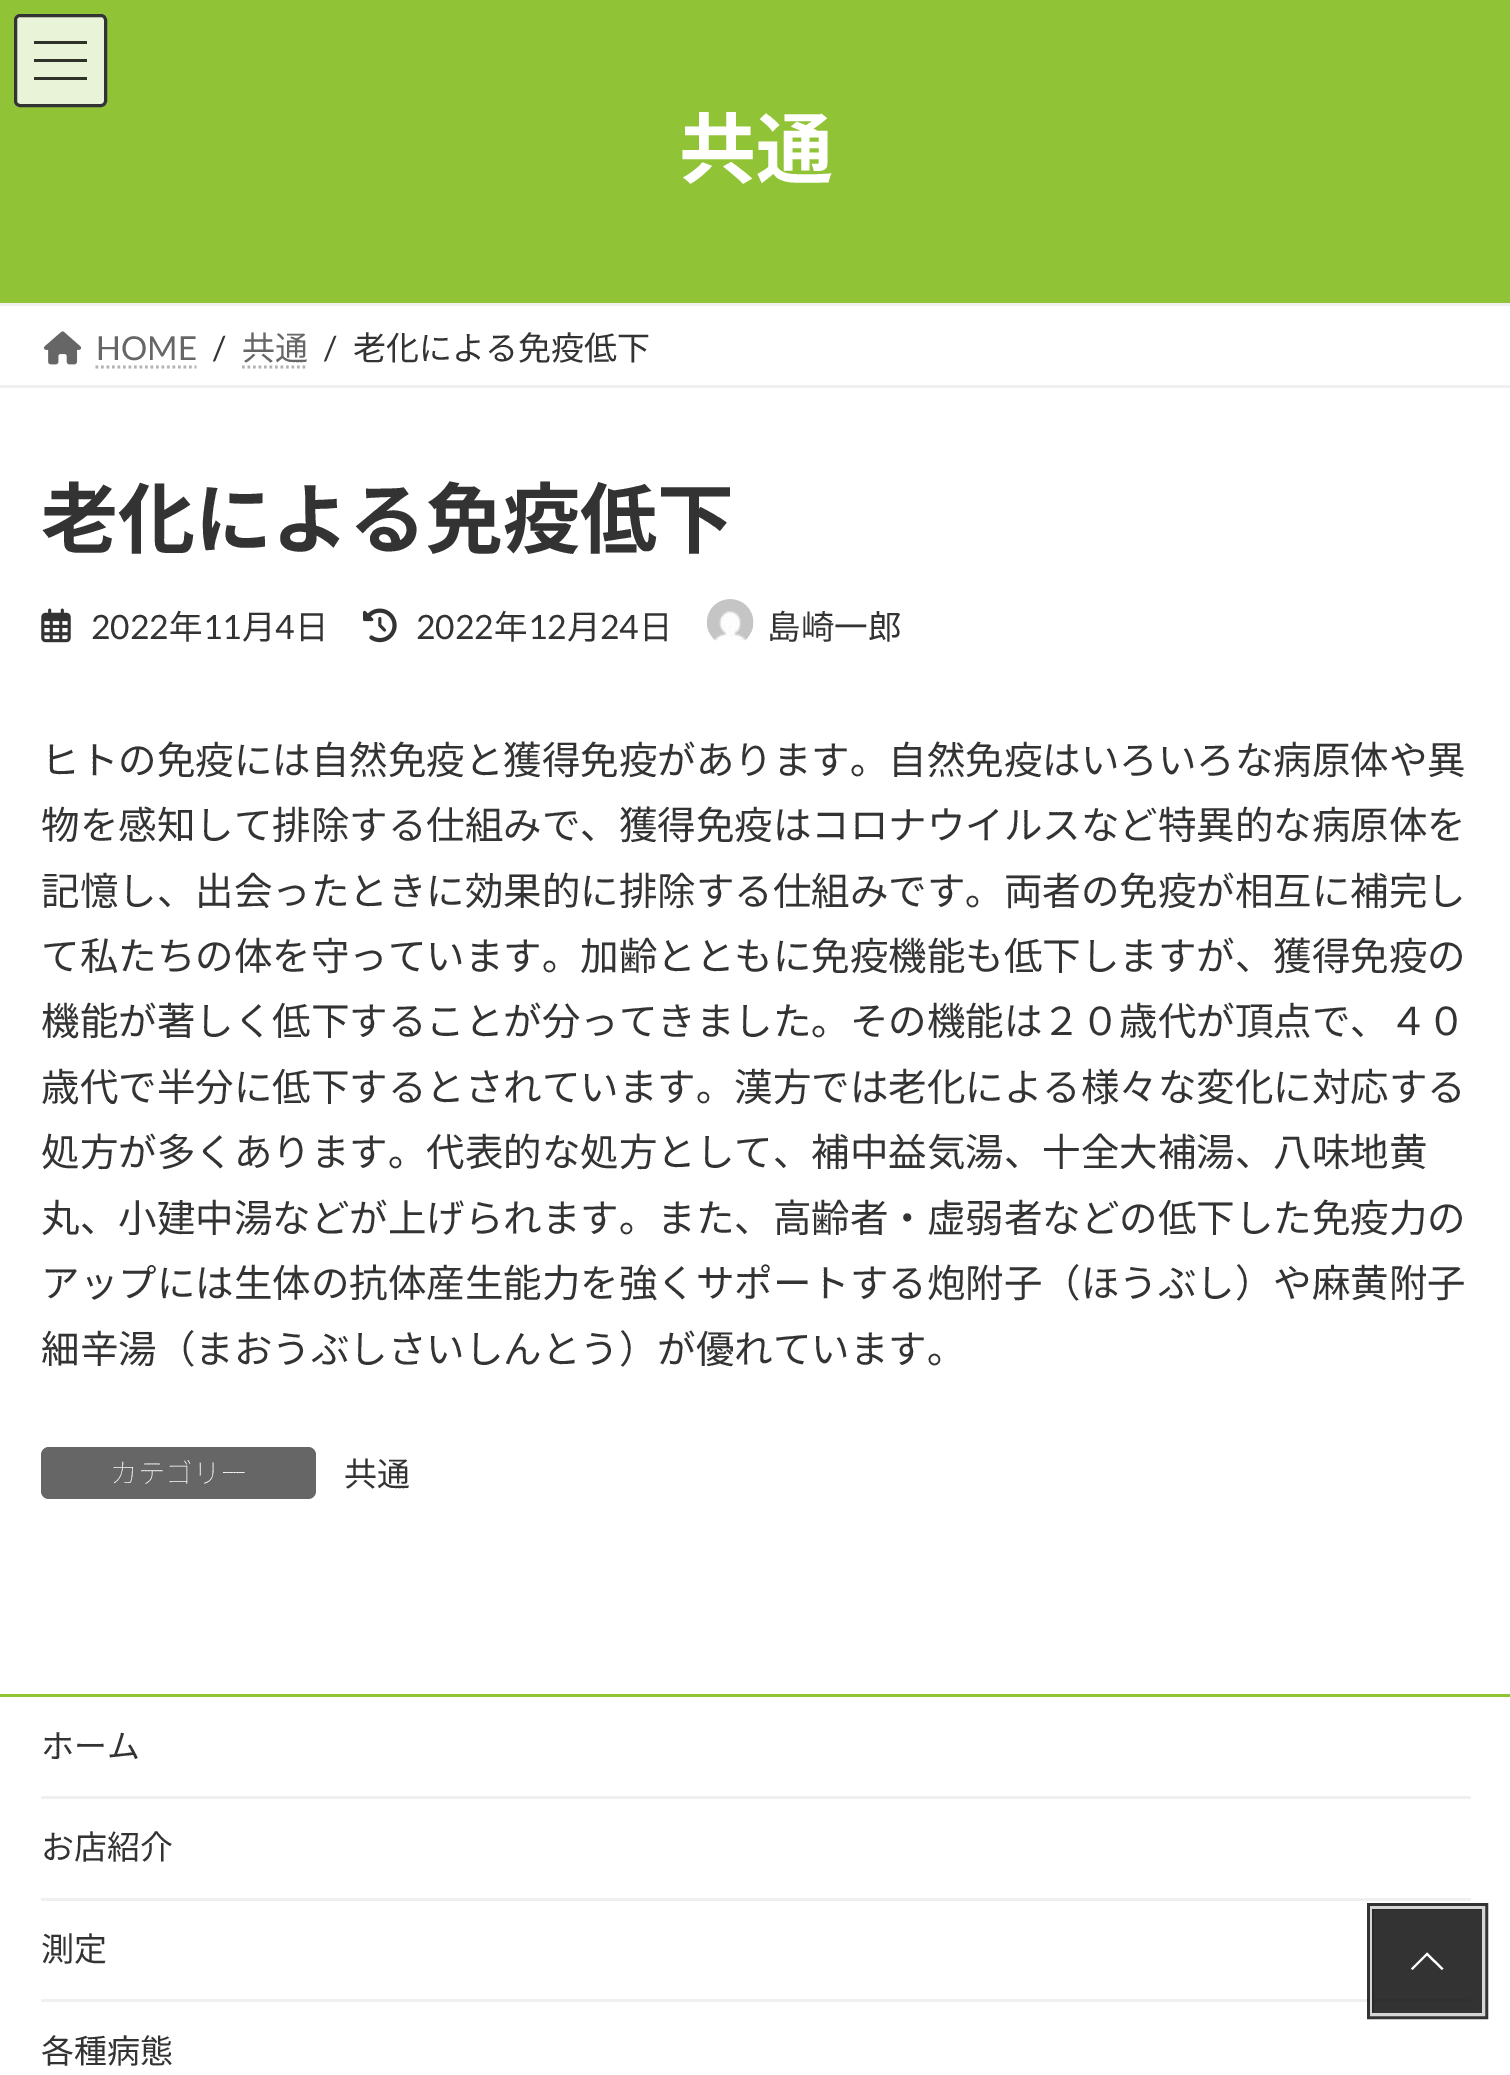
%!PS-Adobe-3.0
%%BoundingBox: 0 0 1510 2075
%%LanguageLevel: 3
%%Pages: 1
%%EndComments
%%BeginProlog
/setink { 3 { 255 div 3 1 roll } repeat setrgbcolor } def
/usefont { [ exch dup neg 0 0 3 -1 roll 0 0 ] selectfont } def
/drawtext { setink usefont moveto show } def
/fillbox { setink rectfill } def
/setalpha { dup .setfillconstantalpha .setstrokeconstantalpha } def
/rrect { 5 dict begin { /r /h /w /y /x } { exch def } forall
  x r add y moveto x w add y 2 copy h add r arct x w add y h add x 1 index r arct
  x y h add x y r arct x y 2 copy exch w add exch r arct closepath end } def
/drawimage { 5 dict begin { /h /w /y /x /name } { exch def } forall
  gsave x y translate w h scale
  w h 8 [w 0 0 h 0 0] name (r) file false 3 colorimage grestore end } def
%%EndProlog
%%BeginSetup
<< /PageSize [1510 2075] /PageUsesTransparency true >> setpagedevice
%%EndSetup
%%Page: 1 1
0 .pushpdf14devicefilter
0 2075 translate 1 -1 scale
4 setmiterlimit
0 0 1510 2075 255 255 255 fillbox
0 0 1510 303 145 195 55 fillbox
233 243 215 setink
14 14 93 93 6 rrect fill
34 41 53 3 47 49 43 fillbox
34 59 53 3 47 49 43 fillbox
34 77 53 3 47 49 43 fillbox
51 51 51 setink
3 setlinewidth
15.5 15.5 90 90 4.5 rrect stroke
(共通) 679 177 /NotoSansJP-Bold 77 255 255 255 drawtext
0 303 1510 3 240 240 240 fillbox
0 385 1510 3 240 240 240 fillbox
(assets/img1.rgb) 44 331 38 34 drawimage
(HOME) 96 360 /Lato-Regular 33 102 102 102 drawtext
179 179 179 setink
2.8 setlinewidth
[2.75 2.75] 0 setdash
95.5 367 moveto 196.5 367 lineto stroke
(/) 213 360 /Lato-Regular 33 51 51 51 drawtext
(共通) 242 360 /NotoSansJP-Regular 33 102 102 102 drawtext
179 179 179 setink
242 367 moveto 308 367 lineto stroke
(/) 324 360 /Lato-Regular 33 51 51 51 drawtext
(老化による免疫低下) 353 360 /NotoSansJP-Regular 33 51 51 51 drawtext
(老化による免疫低下) 41 547 /NotoSansJP-Bold 77 51 51 51 drawtext
(assets/img2.rgb) 41 608 30 35 drawimage
(2022) 91 639 /Lato-Regular 33.5 51 51 51 drawtext
(年) 169 639 /NotoSansJP-Regular 33.5 51 51 51 drawtext
(11) 203 639 /Lato-Regular 33.5 51 51 51 drawtext
(月) 242 639 /NotoSansJP-Regular 33.5 51 51 51 drawtext
(4) 275 639 /Lato-Regular 33.5 51 51 51 drawtext
(日) 295 639 /NotoSansJP-Regular 33.5 51 51 51 drawtext
(assets/img3.rgb) 363 608 34 35 drawimage
(2022) 416 639 /Lato-Regular 33.5 51 51 51 drawtext
(年) 494 639 /NotoSansJP-Regular 33.5 51 51 51 drawtext
(12) 528 639 /Lato-Regular 33.5 51 51 51 drawtext
(月) 567 639 /NotoSansJP-Regular 33.5 51 51 51 drawtext
(24) 600 639 /Lato-Regular 33.5 51 51 51 drawtext
(日) 639 639 /NotoSansJP-Regular 33.5 51 51 51 drawtext
(assets/img4.rgb) 707 599 47 42 drawimage
(島崎一郎) 767 639 /NotoSansJP-Regular 33.5 51 51 51 drawtext
(ヒトの免疫には自然免疫と獲得免疫があります。自然免疫はいろいろな病原体や異) 41 774 /NotoSansJP-Regular 38.5 51 51 51 drawtext
(物を感知して排除する仕組みで、獲得免疫はコロナウイルスなど特異的な病原体を) 41 839 /NotoSansJP-Regular 38.5 51 51 51 drawtext
(記憶し、出会ったときに効果的に排除する仕組みです。両者の免疫が相互に補完し) 41 905 /NotoSansJP-Regular 38.5 51 51 51 drawtext
(て私たちの体を守っています。加齢とともに免疫機能も低下しますが、獲得免疫の) 41 970 /NotoSansJP-Regular 38.5 51 51 51 drawtext
(機能が著しく低下することが分ってきました。その機能は２０歳代が頂点で、４０) 41 1035 /NotoSansJP-Regular 38.5 51 51 51 drawtext
(歳代で半分に低下するとされています。漢方では老化による様々な変化に対応する) 41 1101 /NotoSansJP-Regular 38.5 51 51 51 drawtext
(処方が多くあります。代表的な処方として、補中益気湯、十全大補湯、八味地黄) 41 1166 /NotoSansJP-Regular 38.5 51 51 51 drawtext
(丸、小建中湯などが上げられます。また、高齢者・虚弱者などの低下した免疫力の) 41 1232 /NotoSansJP-Regular 38.5 51 51 51 drawtext
(アップには生体の抗体産生能力を強くサポートする炮附子（ほうぶし）や麻黄附子) 41 1297 /NotoSansJP-Regular 38.5 51 51 51 drawtext
(細辛湯（まおうぶしさいしんとう）が優れています。) 41 1363 /NotoSansJP-Regular 38.5 51 51 51 drawtext
102 102 102 setink
41 1447 275 52 8 rrect fill
(カテゴリー) 110 1483 /NotoSansJP-Thin 27.5 255 255 255 drawtext
(共通) 344 1486 /NotoSansJP-Regular 33 51 51 51 drawtext
0 1694 1510 3 145 195 55 fillbox
41 1796 1430 3 240 240 240 fillbox
(ホーム) 41 1758 /NotoSansJP-Regular 33 51 51 51 drawtext
41 1898 1430 3 240 240 240 fillbox
(お店紹介) 41 1859 /NotoSansJP-Regular 33 51 51 51 drawtext
41 1999 1430 3 240 240 240 fillbox
(測定) 41 1961 /NotoSansJP-Regular 33 51 51 51 drawtext
(各種病態) 41 2063 /NotoSansJP-Regular 33 51 51 51 drawtext
0.8 setalpha
0 0 0 setink
6 setlinewidth
[] 0 setdash
1370 1906 115 110 rectstroke
255 255 255 setink
3 setlinewidth
1371.5 1907.5 112 107 rectstroke
1372 1909 110 104 0 0 0 fillbox
1 setalpha
255 255 255 setink
1443.5 1968.5 moveto 1442 1970 lineto 1427 1955.5 lineto 1412.5 1970 lineto 1411 1968.5 lineto 1427 1952.5 lineto closepath fill
.poppdf14devicefilter showpage
%%EOF
